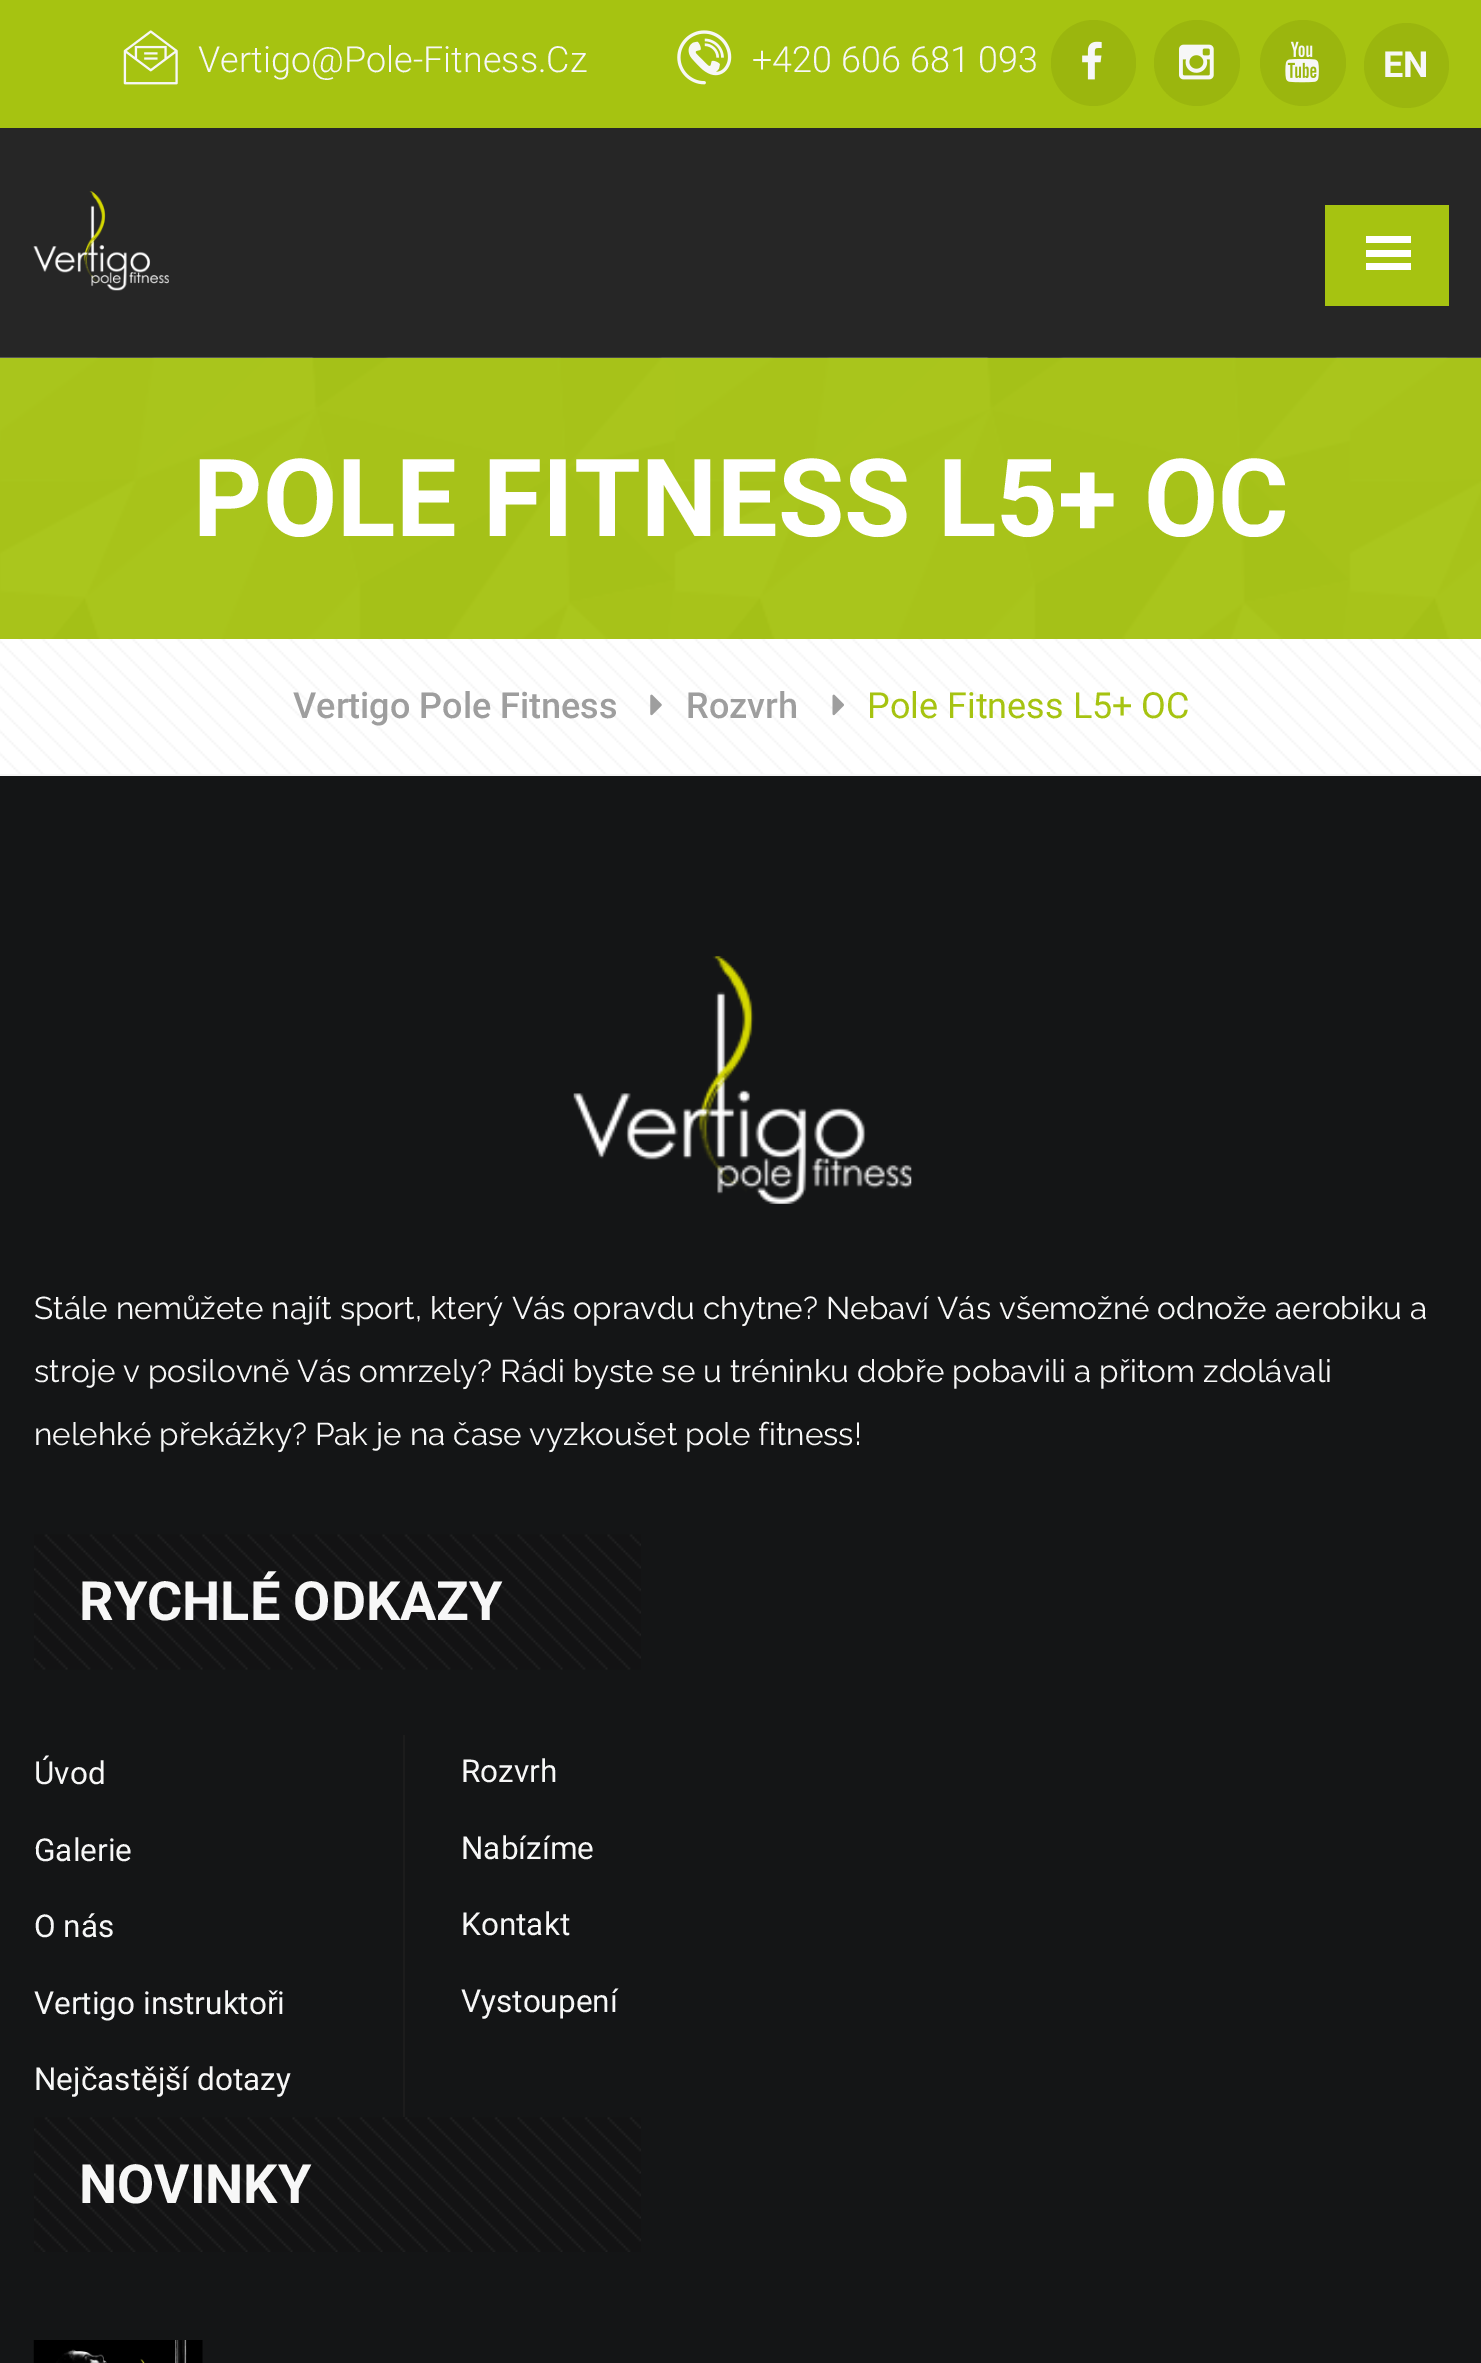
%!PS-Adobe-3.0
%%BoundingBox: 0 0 1481 2363
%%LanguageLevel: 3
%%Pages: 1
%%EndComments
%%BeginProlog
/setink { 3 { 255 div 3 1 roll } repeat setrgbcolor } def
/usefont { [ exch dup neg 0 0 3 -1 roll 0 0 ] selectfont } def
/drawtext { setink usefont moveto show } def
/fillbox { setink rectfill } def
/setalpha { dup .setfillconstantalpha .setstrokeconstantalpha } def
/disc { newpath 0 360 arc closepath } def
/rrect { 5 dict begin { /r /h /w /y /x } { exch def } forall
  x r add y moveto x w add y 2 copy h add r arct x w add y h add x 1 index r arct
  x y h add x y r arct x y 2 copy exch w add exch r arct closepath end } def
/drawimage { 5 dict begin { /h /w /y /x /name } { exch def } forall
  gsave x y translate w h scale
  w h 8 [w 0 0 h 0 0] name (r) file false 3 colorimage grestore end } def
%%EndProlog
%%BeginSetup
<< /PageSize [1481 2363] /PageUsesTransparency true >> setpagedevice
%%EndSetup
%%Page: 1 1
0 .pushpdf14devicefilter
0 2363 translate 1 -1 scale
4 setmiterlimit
0 0 1481 2363 255 255 255 fillbox
0.85 setalpha
0 128 1481 230 0 0 0 fillbox
1 setalpha
0 0 1481 128 166 195 17 fillbox
(assets/img1.rgb) 123 30 55 55 drawimage
(Vertigo@Pole-Fitness.Cz) 198 72 /Roboto-Light 36 247 247 247 drawtext
(assets/img2.rgb) 677 30 55 55 drawimage
(+420 606 681 093) 752 72 /Roboto-Light 36 247 247 247 drawtext
155 182 14 setink
1051 20 85 86 42.5 rrect fill
(assets/img3.rgb) 1082 41 20 39 drawimage
1197 63 43 disc fill
(assets/img4.rgb) 1179 44 35 36 drawimage
1303 63 43 disc fill
(assets/img5.rgb) 1285 41 34 42 drawimage
1406.5 65.5 42.5 disc fill
(EN) 1383 77 /Roboto-Bold 36 247 247 247 drawtext
(assets/img6.rgb) 33 191 136 100 drawimage
1325 205 124 101 166 195 17 fillbox
1366 236 45 7 255 255 255 fillbox
1366 250 45 7 255 255 255 fillbox
1366 263 45 7 255 255 255 fillbox
(assets/img7.rgb) 0 357 1481 282 drawimage
(POLE FITNESS L5+ OC) 193 536 /Roboto-Bold 108 255 255 255 drawtext
(assets/img8.rgb) 0 639 1481 135 drawimage
0 774 1481 2 247 247 247 fillbox
(Vertigo Pole Fitness) 293 718 /Roboto-Medium 36 158 158 158 drawtext
(assets/img9.rgb) 650 694 12 22 drawimage
(Rozvrh) 686 718 /Roboto-Medium 36 158 158 158 drawtext
(assets/img10.rgb) 832 694 12 22 drawimage
(Pole Fitness L5+ OC) 867 718 /Roboto-Regular 36 166 195 17 drawtext
0 776 1481 1587 20 21 22 fillbox
(assets/img11.rgb) 573 956 339 248 drawimage
(Stále nemůžete najít sport, který Vás opravdu chytne? Nebaví Vás všemožné odnože aerobiku a) 34 1319 /Raleway-Regular 31.5 247 247 247 drawtext
(stroje v posilovně Vás omrzely? Rádi byste se u tréninku dobře pobavili a přitom zdolávali) 34 1382 /Raleway-Regular 31.5 247 247 247 drawtext
(nelehké překážky? Pak je na čase vyzkoušet pole fitness!) 34 1445 /Raleway-Regular 31.5 247 247 247 drawtext
(assets/img12.rgb) 34 1534 607 136 drawimage
(RYCHLÉ ODKAZY) 79 1620 /Roboto-Bold 54 247 247 247 drawtext
403 1735 2 382 28 28 28 fillbox
(Úvod) 34 1784 /Roboto-Regular 31.5 247 247 247 drawtext
(Galerie) 34 1861 /Roboto-Regular 31.5 247 247 247 drawtext
(O nás) 34 1937 /Roboto-Regular 31.5 247 247 247 drawtext
(Vertigo instruktoři) 34 2014 /Roboto-Regular 31.5 247 247 247 drawtext
(Nejčastější dotazy) 34 2090 /Roboto-Regular 31.5 247 247 247 drawtext
(Rozvrh) 461 1782 /Roboto-Regular 31.5 247 247 247 drawtext
(Nabízíme) 461 1859 /Roboto-Regular 31.5 247 247 247 drawtext
(Kontakt) 461 1935 /Roboto-Regular 31.5 247 247 247 drawtext
(Vystoupení) 461 2012 /Roboto-Regular 31.5 247 247 247 drawtext
(assets/img13.rgb) 34 2117 607 135 drawimage
(NOVINKY) 79 2203 /Roboto-Bold 54 247 247 247 drawtext
(assets/img14.rgb) 33 2340 170 23 drawimage
.poppdf14devicefilter showpage
%%EOF
